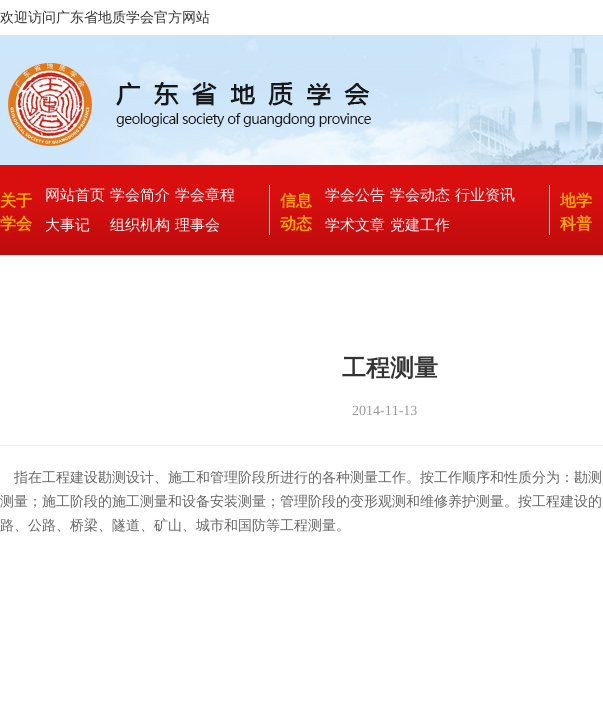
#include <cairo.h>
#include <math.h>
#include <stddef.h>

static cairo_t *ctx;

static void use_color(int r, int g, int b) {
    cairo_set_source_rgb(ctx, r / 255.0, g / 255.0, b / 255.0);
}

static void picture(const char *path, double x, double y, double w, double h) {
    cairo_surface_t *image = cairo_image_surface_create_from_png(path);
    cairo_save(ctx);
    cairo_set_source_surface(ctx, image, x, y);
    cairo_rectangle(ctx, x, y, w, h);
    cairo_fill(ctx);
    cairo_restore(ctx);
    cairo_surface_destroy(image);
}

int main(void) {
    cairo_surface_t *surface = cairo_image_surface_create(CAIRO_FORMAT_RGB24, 603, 712);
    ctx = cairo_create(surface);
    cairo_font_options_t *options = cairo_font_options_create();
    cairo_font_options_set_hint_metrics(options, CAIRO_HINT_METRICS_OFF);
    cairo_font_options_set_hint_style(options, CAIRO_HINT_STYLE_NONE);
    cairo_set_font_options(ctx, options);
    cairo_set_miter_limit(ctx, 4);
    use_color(255, 255, 255);
    cairo_paint(ctx);
    picture("img1.png", 0, 35, 603, 220);
    cairo_select_font_face(ctx, "WenQuanYi Zen Hei Medium", CAIRO_FONT_SLANT_NORMAL, CAIRO_FONT_WEIGHT_NORMAL);
    cairo_set_font_size(ctx, 14);
    use_color(51, 51, 51);
    cairo_move_to(ctx, 0, 22);
    cairo_show_text(ctx, "欢迎访问广东省地质学会官方网站");
    picture("img2.png", 8, 36, 595, 129);
    cairo_select_font_face(ctx, "WenQuanYi Zen Hei", CAIRO_FONT_SLANT_NORMAL, CAIRO_FONT_WEIGHT_BOLD);
    cairo_set_font_size(ctx, 16);
    use_color(255, 174, 0);
    cairo_move_to(ctx, 0, 206);
    cairo_show_text(ctx, "关于");
    cairo_move_to(ctx, 0, 229);
    cairo_show_text(ctx, "学会");
    cairo_select_font_face(ctx, "WenQuanYi Zen Hei Medium", CAIRO_FONT_SLANT_NORMAL, CAIRO_FONT_WEIGHT_NORMAL);
    cairo_set_font_size(ctx, 15);
    use_color(255, 255, 255);
    cairo_move_to(ctx, 45, 200);
    cairo_show_text(ctx, "网站首页");
    cairo_move_to(ctx, 110, 200);
    cairo_show_text(ctx, "学会简介");
    cairo_move_to(ctx, 175, 200);
    cairo_show_text(ctx, "学会章程");
    cairo_move_to(ctx, 45, 230);
    cairo_show_text(ctx, "大事记");
    cairo_move_to(ctx, 110, 230);
    cairo_show_text(ctx, "组织机构");
    cairo_move_to(ctx, 175, 230);
    cairo_show_text(ctx, "理事会");
    cairo_rectangle(ctx, 269, 185, 1, 50);
    cairo_fill(ctx);
    cairo_select_font_face(ctx, "WenQuanYi Zen Hei", CAIRO_FONT_SLANT_NORMAL, CAIRO_FONT_WEIGHT_BOLD);
    cairo_set_font_size(ctx, 16);
    use_color(255, 174, 0);
    cairo_move_to(ctx, 280, 206);
    cairo_show_text(ctx, "信息");
    cairo_move_to(ctx, 280, 229);
    cairo_show_text(ctx, "动态");
    cairo_select_font_face(ctx, "WenQuanYi Zen Hei Medium", CAIRO_FONT_SLANT_NORMAL, CAIRO_FONT_WEIGHT_NORMAL);
    cairo_set_font_size(ctx, 15);
    use_color(255, 255, 255);
    cairo_move_to(ctx, 325, 200);
    cairo_show_text(ctx, "学会公告");
    cairo_move_to(ctx, 390, 200);
    cairo_show_text(ctx, "学会动态");
    cairo_move_to(ctx, 455, 200);
    cairo_show_text(ctx, "行业资讯");
    cairo_move_to(ctx, 325, 230);
    cairo_show_text(ctx, "学术文章");
    cairo_move_to(ctx, 390, 230);
    cairo_show_text(ctx, "党建工作");
    cairo_rectangle(ctx, 549, 185, 1, 50);
    cairo_fill(ctx);
    cairo_select_font_face(ctx, "WenQuanYi Zen Hei", CAIRO_FONT_SLANT_NORMAL, CAIRO_FONT_WEIGHT_BOLD);
    cairo_set_font_size(ctx, 16);
    use_color(255, 174, 0);
    cairo_move_to(ctx, 560, 206);
    cairo_show_text(ctx, "地学");
    cairo_move_to(ctx, 560, 229);
    cairo_show_text(ctx, "科普");
    cairo_set_font_size(ctx, 24);
    use_color(51, 51, 51);
    cairo_move_to(ctx, 342, 376);
    cairo_show_text(ctx, "工程测量");
    cairo_select_font_face(ctx, "Liberation Serif", CAIRO_FONT_SLANT_NORMAL, CAIRO_FONT_WEIGHT_NORMAL);
    cairo_set_font_size(ctx, 14);
    use_color(153, 153, 153);
    cairo_move_to(ctx, 352, 415);
    cairo_show_text(ctx, "2014-11-13");
    use_color(238, 238, 238);
    cairo_rectangle(ctx, 0, 445, 603, 1);
    cairo_fill(ctx);
    cairo_select_font_face(ctx, "WenQuanYi Zen Hei Medium", CAIRO_FONT_SLANT_NORMAL, CAIRO_FONT_WEIGHT_NORMAL);
    use_color(102, 102, 102);
    cairo_move_to(ctx, 14, 482);
    cairo_show_text(ctx, "指在工程建设勘测设计、施工和管理阶段所进行的各种测量工作。按工作顺序和性质分为：勘测");
    cairo_move_to(ctx, 0, 506);
    cairo_show_text(ctx, "测量；施工阶段的施工测量和设备安装测量；管理阶段的变形观测和维修养护测量。按工程建设的");
    cairo_move_to(ctx, 0, 530);
    cairo_show_text(ctx, "路、公路、桥梁、隧道、矿山、城市和国防等工程测量。");
    cairo_surface_write_to_png(surface, "result.png");
    cairo_font_options_destroy(options);
    cairo_destroy(ctx);
    cairo_surface_destroy(surface);
    return 0;
}
